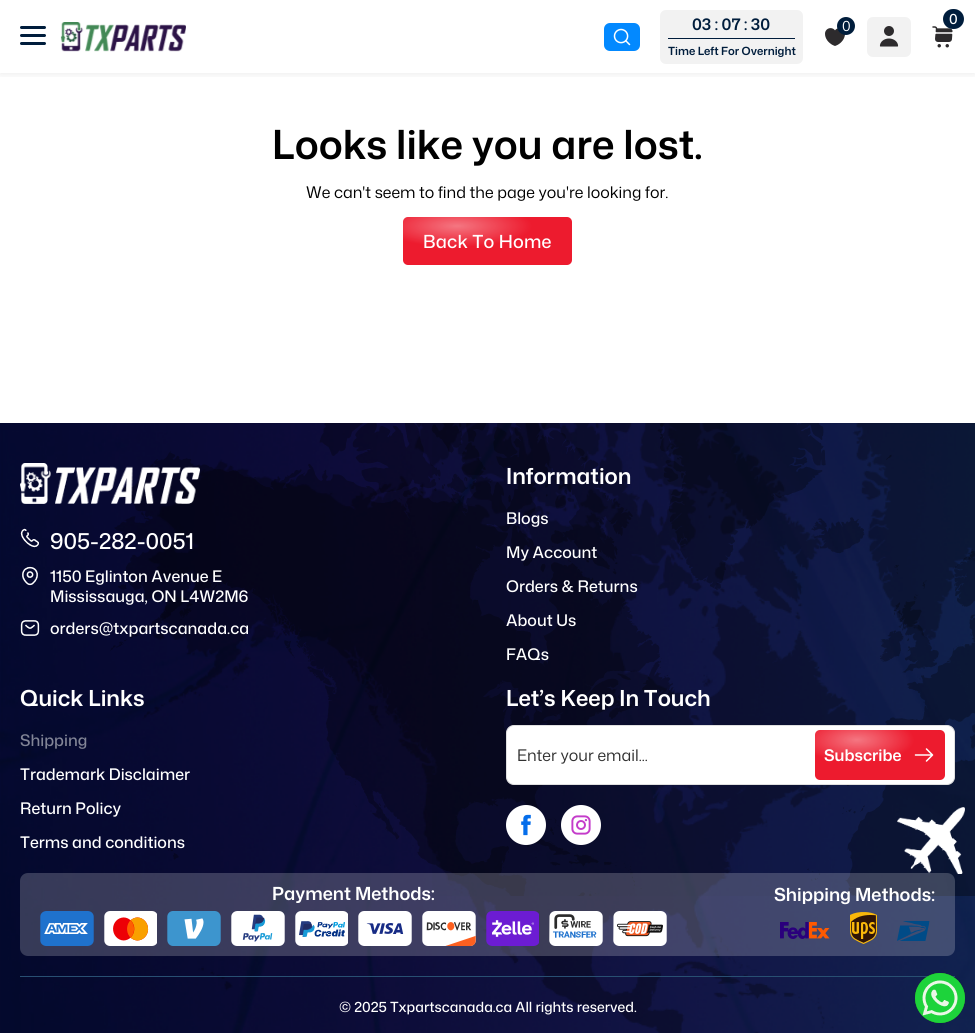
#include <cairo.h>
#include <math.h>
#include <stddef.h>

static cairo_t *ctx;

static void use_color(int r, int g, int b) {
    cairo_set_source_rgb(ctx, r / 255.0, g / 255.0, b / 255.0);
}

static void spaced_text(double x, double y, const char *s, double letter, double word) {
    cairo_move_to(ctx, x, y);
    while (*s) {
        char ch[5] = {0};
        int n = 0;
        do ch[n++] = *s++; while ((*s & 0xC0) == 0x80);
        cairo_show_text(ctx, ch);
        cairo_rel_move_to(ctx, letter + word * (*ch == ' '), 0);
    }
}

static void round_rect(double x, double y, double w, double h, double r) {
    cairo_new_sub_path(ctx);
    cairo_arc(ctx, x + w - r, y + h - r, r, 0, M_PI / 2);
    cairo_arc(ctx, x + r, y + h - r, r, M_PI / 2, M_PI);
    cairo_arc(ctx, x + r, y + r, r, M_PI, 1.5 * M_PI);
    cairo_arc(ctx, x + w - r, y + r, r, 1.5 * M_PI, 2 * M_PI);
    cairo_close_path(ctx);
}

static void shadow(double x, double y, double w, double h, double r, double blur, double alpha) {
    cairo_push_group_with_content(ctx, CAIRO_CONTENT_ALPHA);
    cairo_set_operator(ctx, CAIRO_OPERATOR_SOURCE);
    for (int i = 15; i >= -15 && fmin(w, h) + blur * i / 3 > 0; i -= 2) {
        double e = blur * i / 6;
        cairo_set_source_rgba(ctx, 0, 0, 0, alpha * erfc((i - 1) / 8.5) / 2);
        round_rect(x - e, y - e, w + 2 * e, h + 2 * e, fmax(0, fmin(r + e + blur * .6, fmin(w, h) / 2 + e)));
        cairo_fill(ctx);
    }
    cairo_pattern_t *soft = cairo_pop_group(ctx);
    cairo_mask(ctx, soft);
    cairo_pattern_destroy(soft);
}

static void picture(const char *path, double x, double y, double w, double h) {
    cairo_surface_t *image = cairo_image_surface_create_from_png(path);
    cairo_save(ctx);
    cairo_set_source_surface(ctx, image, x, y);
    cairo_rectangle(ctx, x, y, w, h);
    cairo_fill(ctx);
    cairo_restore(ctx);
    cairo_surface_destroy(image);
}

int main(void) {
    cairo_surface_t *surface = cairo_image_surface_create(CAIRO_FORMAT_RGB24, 975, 1033);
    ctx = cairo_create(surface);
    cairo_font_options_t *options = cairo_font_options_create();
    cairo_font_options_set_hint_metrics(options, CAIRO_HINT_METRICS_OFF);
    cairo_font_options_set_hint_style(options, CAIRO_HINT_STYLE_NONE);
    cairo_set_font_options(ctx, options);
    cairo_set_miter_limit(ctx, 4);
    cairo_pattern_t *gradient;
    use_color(255, 255, 255);
    cairo_paint(ctx);
    cairo_save(ctx);
    cairo_rectangle(ctx, 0, 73, 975, 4);
    cairo_clip(ctx);
    use_color(0, 0, 0);
    shadow(0, 2, 975, 73, 0, 4, 0.07);
    cairo_restore(ctx);
    use_color(0, 29, 60);
    round_rect(20, 26, 26, 3, 1.5);
    cairo_fill(ctx);
    round_rect(20, 34, 26, 3, 1.5);
    cairo_fill(ctx);
    round_rect(20, 42, 26, 3, 1.5);
    cairo_fill(ctx);
    picture("img1.png", 60, 22, 126, 30);
    use_color(3, 137, 255);
    round_rect(604, 23, 36, 28, 6);
    cairo_fill(ctx);
    picture("img2.png", 613, 28, 18, 18);
    use_color(242, 242, 242);
    round_rect(660, 10, 143, 54, 6);
    cairo_fill(ctx);
    cairo_select_font_face(ctx, "Mona Sans SemiBold", CAIRO_FONT_SLANT_NORMAL, CAIRO_FONT_WEIGHT_NORMAL);
    cairo_set_font_size(ctx, 16);
    use_color(0, 29, 60);
    cairo_move_to(ctx, 692, 30);
    cairo_show_text(ctx, "03 : 07 : 30");
    cairo_rectangle(ctx, 668, 38, 127, 1);
    cairo_fill(ctx);
    cairo_set_font_size(ctx, 11.25);
    cairo_move_to(ctx, 668, 55);
    cairo_show_text(ctx, "Time Left For Overnight");
    picture("img3.png", 825, 28, 20, 18);
    cairo_arc(ctx, 846, 26, 9, 0, 2 * M_PI);
    cairo_fill(ctx);
    cairo_select_font_face(ctx, "Mona Sans", CAIRO_FONT_SLANT_NORMAL, CAIRO_FONT_WEIGHT_NORMAL);
    cairo_set_font_size(ctx, 14);
    use_color(255, 255, 255);
    cairo_move_to(ctx, 842, 31);
    cairo_show_text(ctx, "0");
    use_color(242, 242, 242);
    round_rect(867, 17, 44, 40, 6);
    cairo_fill(ctx);
    picture("img4.png", 879, 26, 20, 21);
    picture("img5.png", 932, 26, 21, 22);
    use_color(0, 29, 60);
    round_rect(943, 9, 21, 20, 10);
    cairo_fill(ctx);
    cairo_select_font_face(ctx, "Mona Sans Medium", CAIRO_FONT_SLANT_NORMAL, CAIRO_FONT_WEIGHT_NORMAL);
    use_color(255, 255, 255);
    cairo_move_to(ctx, 949, 24);
    cairo_show_text(ctx, "0");
    cairo_select_font_face(ctx, "Mona Sans SemiBold", CAIRO_FONT_SLANT_NORMAL, CAIRO_FONT_WEIGHT_NORMAL);
    cairo_set_font_size(ctx, 40);
    use_color(0, 0, 0);
    cairo_move_to(ctx, 272, 159);
    cairo_show_text(ctx, "Looks like you are lost.");
    cairo_select_font_face(ctx, "Mona Sans", CAIRO_FONT_SLANT_NORMAL, CAIRO_FONT_WEIGHT_NORMAL);
    cairo_set_font_size(ctx, 16);
    cairo_move_to(ctx, 306, 198);
    cairo_show_text(ctx, "We can't seem to find the page you're looking for.");
    use_color(237, 27, 46);
    round_rect(403, 217, 169, 48, 5);
    cairo_fill(ctx);
    gradient = cairo_pattern_create_radial(0, 0, 0, 0, 0, 1);
    cairo_pattern_set_matrix(gradient, &(cairo_matrix_t){1.0 / 107, 0, 0, 1.0 / 30, -1.0 * 457 / 107, -1.0 * 226 / 30});
    cairo_pattern_add_color_stop_rgba(gradient, 0, 1, 1, 1, 0.4);
    cairo_pattern_add_color_stop_rgba(gradient, 0.7, 1, 1, 1, 0);
    cairo_pattern_add_color_stop_rgba(gradient, 1, 1, 1, 1, 0);
    cairo_set_source(ctx, gradient);
    cairo_pattern_destroy(gradient);
    round_rect(403, 217, 169, 48, 5);
    cairo_fill(ctx);
    cairo_select_font_face(ctx, "Mona Sans Medium", CAIRO_FONT_SLANT_NORMAL, CAIRO_FONT_WEIGHT_NORMAL);
    cairo_set_font_size(ctx, 18);
    use_color(255, 255, 255);
    spaced_text(423, 248, "Back To Home", 0.2, 0);
    picture("img6.png", 0, 423, 975, 610);
    cairo_set_source_rgba(ctx, 0.012, 0.075, 0.141, 0.1);
    cairo_rectangle(ctx, 432, 423, 543, 473);
    cairo_fill(ctx);
    picture("img7.png", 110, 423, 865, 473);
    picture("img8.png", 20, 463, 180, 41);
    picture("img9.png", 20, 528, 19, 20);
    cairo_set_font_size(ctx, 22);
    use_color(255, 255, 255);
    cairo_move_to(ctx, 50, 549);
    cairo_show_text(ctx, "905-282-0051");
    picture("img10.png", 22, 566, 16, 20);
    cairo_set_font_size(ctx, 16);
    cairo_move_to(ctx, 50, 582);
    cairo_show_text(ctx, "1150 Eglinton Avenue E");
    cairo_move_to(ctx, 50, 602);
    cairo_show_text(ctx, "Mississauga, ON L4W2M6");
    picture("img11.png", 20, 620, 20, 16);
    cairo_move_to(ctx, 50, 634);
    cairo_show_text(ctx, "orders@txpartscanada.ca");
    cairo_select_font_face(ctx, "Mona Sans SemiBold", CAIRO_FONT_SLANT_NORMAL, CAIRO_FONT_WEIGHT_NORMAL);
    cairo_set_font_size(ctx, 22);
    cairo_move_to(ctx, 506, 484);
    cairo_show_text(ctx, "Information");
    cairo_select_font_face(ctx, "Mona Sans Medium", CAIRO_FONT_SLANT_NORMAL, CAIRO_FONT_WEIGHT_NORMAL);
    cairo_set_font_size(ctx, 16);
    cairo_move_to(ctx, 506, 524);
    cairo_show_text(ctx, "Blogs");
    cairo_move_to(ctx, 506, 558);
    cairo_show_text(ctx, "My Account");
    cairo_move_to(ctx, 506, 592);
    cairo_show_text(ctx, "Orders & Returns");
    cairo_move_to(ctx, 506, 626);
    cairo_show_text(ctx, "About Us");
    cairo_move_to(ctx, 506, 660);
    cairo_show_text(ctx, "FAQs");
    cairo_select_font_face(ctx, "Mona Sans SemiBold", CAIRO_FONT_SLANT_NORMAL, CAIRO_FONT_WEIGHT_NORMAL);
    cairo_set_font_size(ctx, 22);
    cairo_move_to(ctx, 20, 706);
    cairo_show_text(ctx, "Quick Links");
    cairo_select_font_face(ctx, "Mona Sans Medium", CAIRO_FONT_SLANT_NORMAL, CAIRO_FONT_WEIGHT_NORMAL);
    cairo_set_font_size(ctx, 16);
    use_color(130, 133, 150);
    cairo_move_to(ctx, 20, 746);
    cairo_show_text(ctx, "Shipping");
    use_color(255, 255, 255);
    cairo_move_to(ctx, 20, 780);
    cairo_show_text(ctx, "Trademark Disclaimer");
    cairo_move_to(ctx, 20, 814);
    cairo_show_text(ctx, "Return Policy");
    cairo_move_to(ctx, 20, 848);
    cairo_show_text(ctx, "Terms and conditions");
    cairo_select_font_face(ctx, "Mona Sans SemiBold", CAIRO_FONT_SLANT_NORMAL, CAIRO_FONT_WEIGHT_NORMAL);
    cairo_set_font_size(ctx, 22);
    cairo_move_to(ctx, 506, 706);
    cairo_show_text(ctx, "Let’s Keep In Touch");
    round_rect(506.5, 725.5, 448, 59, 7.5);
    cairo_fill_preserve(ctx);
    use_color(224, 224, 224);
    cairo_set_line_width(ctx, 1);
    cairo_stroke(ctx);
    cairo_select_font_face(ctx, "Mona Sans", CAIRO_FONT_SLANT_NORMAL, CAIRO_FONT_WEIGHT_NORMAL);
    cairo_set_font_size(ctx, 16);
    use_color(49, 49, 49);
    cairo_move_to(ctx, 517, 761);
    cairo_show_text(ctx, "Enter your email...");
    use_color(237, 27, 46);
    round_rect(815, 730, 130, 50, 5);
    cairo_fill(ctx);
    gradient = cairo_pattern_create_radial(0, 0, 0, 0, 0, 1);
    cairo_pattern_set_matrix(gradient, &(cairo_matrix_t){1.0 / 82, 0, 0, 1.0 / 32, -1.0 * 857 / 82, -1.0 * 740 / 32});
    cairo_pattern_add_color_stop_rgba(gradient, 0, 1, 1, 1, 0.4);
    cairo_pattern_add_color_stop_rgba(gradient, 0.7, 1, 1, 1, 0);
    cairo_pattern_add_color_stop_rgba(gradient, 1, 1, 1, 1, 0);
    cairo_set_source(ctx, gradient);
    cairo_pattern_destroy(gradient);
    round_rect(815, 730, 130, 50, 5);
    cairo_fill(ctx);
    cairo_select_font_face(ctx, "Mona Sans SemiBold", CAIRO_FONT_SLANT_NORMAL, CAIRO_FONT_WEIGHT_NORMAL);
    use_color(255, 255, 255);
    cairo_move_to(ctx, 824, 761);
    cairo_show_text(ctx, "Subscribe");
    cairo_new_path(ctx);
    cairo_move_to(ctx, 926.5, 749);
    cairo_line_to(ctx, 932.5, 755);
    cairo_line_to(ctx, 926.5, 761);
    cairo_move_to(ctx, 915.5, 755);
    cairo_line_to(ctx, 932.5, 755);
    cairo_set_line_width(ctx, 1.5);
    cairo_set_line_cap(ctx, CAIRO_LINE_CAP_ROUND);
    cairo_set_line_join(ctx, CAIRO_LINE_JOIN_ROUND);
    cairo_stroke(ctx);
    cairo_arc(ctx, 526, 825, 20, 0, 2 * M_PI);
    cairo_fill(ctx);
    picture("img12.png", 521, 814, 10, 22);
    cairo_arc(ctx, 581, 825, 20, 0, 2 * M_PI);
    cairo_fill(ctx);
    picture("img13.png", 571, 815, 20, 20);
    cairo_set_source_rgba(ctx, 1, 1, 1, 0.2);
    round_rect(20, 873, 935, 83, 8);
    cairo_fill(ctx);
    cairo_set_font_size(ctx, 18);
    use_color(255, 255, 255);
    cairo_move_to(ctx, 272, 900);
    cairo_show_text(ctx, "Payment Methods:");
    picture("img14.png", 40, 911, 54, 35);
    picture("img15.png", 104, 911, 53, 35);
    picture("img16.png", 167, 911, 54, 35);
    picture("img17.png", 231, 911, 54, 35);
    picture("img18.png", 295, 911, 53, 35);
    picture("img19.png", 358, 911, 54, 35);
    picture("img20.png", 422, 911, 54, 35);
    picture("img21.png", 486, 911, 53, 35);
    picture("img22.png", 549, 911, 54, 35);
    picture("img23.png", 613, 911, 54, 35);
    cairo_move_to(ctx, 774, 901);
    cairo_show_text(ctx, "Shipping Methods:");
    picture("img24.png", 780, 922, 50, 17);
    picture("img25.png", 850, 912, 27, 32);
    picture("img26.png", 897, 921, 33, 20);
    use_color(40, 79, 114);
    cairo_rectangle(ctx, 20, 976, 935, 1);
    cairo_fill(ctx);
    cairo_select_font_face(ctx, "Mona Sans Medium", CAIRO_FONT_SLANT_NORMAL, CAIRO_FONT_WEIGHT_NORMAL);
    cairo_set_font_size(ctx, 14);
    use_color(255, 255, 255);
    cairo_move_to(ctx, 339, 1012);
    cairo_show_text(ctx, "© 2025 Txpartscanada.ca All rights reserved.");
    picture("img27.png", 897, 807, 68, 67);
    cairo_set_source_rgba(ctx, 0.196, 0.733, 0.02, 0.9);
    cairo_arc(ctx, 940, 998, 25, 0, 2 * M_PI);
    cairo_fill(ctx);
    picture("img28.png", 915, 973, 50, 50);
    cairo_surface_write_to_png(surface, "result.png");
    cairo_font_options_destroy(options);
    cairo_destroy(ctx);
    cairo_surface_destroy(surface);
    return 0;
}
